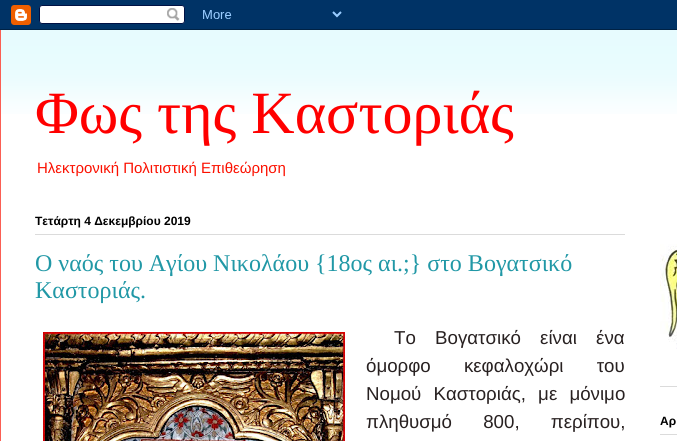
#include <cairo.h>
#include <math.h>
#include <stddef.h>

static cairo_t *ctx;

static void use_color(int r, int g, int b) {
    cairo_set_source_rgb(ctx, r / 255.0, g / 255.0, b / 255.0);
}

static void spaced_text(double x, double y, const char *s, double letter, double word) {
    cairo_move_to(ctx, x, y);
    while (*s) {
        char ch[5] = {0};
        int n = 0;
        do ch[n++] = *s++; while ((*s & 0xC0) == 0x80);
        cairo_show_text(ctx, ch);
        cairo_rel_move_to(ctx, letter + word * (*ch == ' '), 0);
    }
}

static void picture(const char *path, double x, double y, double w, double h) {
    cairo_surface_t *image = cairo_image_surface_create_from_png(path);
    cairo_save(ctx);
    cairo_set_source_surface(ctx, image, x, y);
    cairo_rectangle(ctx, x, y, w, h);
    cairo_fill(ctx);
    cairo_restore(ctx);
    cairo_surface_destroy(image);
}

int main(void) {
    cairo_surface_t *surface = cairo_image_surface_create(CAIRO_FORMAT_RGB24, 677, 441);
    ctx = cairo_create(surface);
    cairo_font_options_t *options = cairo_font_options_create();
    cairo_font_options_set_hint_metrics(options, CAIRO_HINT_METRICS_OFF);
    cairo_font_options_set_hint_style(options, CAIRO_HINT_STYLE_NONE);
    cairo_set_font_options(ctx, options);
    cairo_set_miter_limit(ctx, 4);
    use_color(255, 255, 255);
    cairo_paint(ctx);
    picture("img1.png", 0, 0, 677, 30);
    picture("img2.png", 1, 30, 676, 84);
    use_color(251, 94, 83);
    cairo_rectangle(ctx, 0, 30, 1, 411);
    cairo_fill(ctx);
    cairo_select_font_face(ctx, "Liberation Serif", CAIRO_FONT_SLANT_NORMAL, CAIRO_FONT_WEIGHT_NORMAL);
    cairo_set_font_size(ctx, 60);
    use_color(255, 0, 0);
    cairo_move_to(ctx, 35, 133);
    cairo_show_text(ctx, "Φως της Καστοριάς");
    cairo_select_font_face(ctx, "Liberation Sans", CAIRO_FONT_SLANT_NORMAL, CAIRO_FONT_WEIGHT_NORMAL);
    cairo_set_font_size(ctx, 15);
    use_color(251, 16, 0);
    cairo_move_to(ctx, 37, 173);
    cairo_show_text(ctx, "Ηλεκτρονική Πολιτιστική Επιθεώρηση");
    use_color(219, 219, 219);
    cairo_rectangle(ctx, 35, 234, 590, 1);
    cairo_fill(ctx);
    cairo_select_font_face(ctx, "Liberation Sans", CAIRO_FONT_SLANT_NORMAL, CAIRO_FONT_WEIGHT_BOLD);
    cairo_set_font_size(ctx, 12);
    use_color(0, 0, 0);
    cairo_move_to(ctx, 35, 225);
    cairo_show_text(ctx, "Τετάρτη 4 Δεκεμβρίου 2019");
    cairo_select_font_face(ctx, "Liberation Serif", CAIRO_FONT_SLANT_NORMAL, CAIRO_FONT_WEIGHT_NORMAL);
    cairo_set_font_size(ctx, 24);
    use_color(33, 152, 166);
    cairo_move_to(ctx, 35, 271);
    cairo_show_text(ctx, "Ο ναός του Αγίου Νικολάου {18ος αι.;} στο Βογατσικό");
    cairo_move_to(ctx, 35, 298);
    cairo_show_text(ctx, "Καστοριάς.");
    picture("img3.png", 43, 332, 302, 109);
    cairo_select_font_face(ctx, "Liberation Sans", CAIRO_FONT_SLANT_NORMAL, CAIRO_FONT_WEIGHT_NORMAL);
    cairo_set_font_size(ctx, 18.7);
    use_color(40, 33, 33);
    spaced_text(394, 344, "Το Βογατσικό είναι ένα", 0, 14);
    spaced_text(366, 372, "όμορφο κεφαλοχώρι του", 0, 28);
    spaced_text(366, 400, "Νομού Καστοριάς, με μόνιμο", 0, 7);
    spaced_text(366, 428, "πληθυσμό 800, περίπου,", 0, 26);
    use_color(219, 219, 219);
    cairo_rectangle(ctx, 660, 386, 17, 1);
    cairo_fill(ctx);
    picture("img4.png", 660, 244, 17, 105);
    cairo_rectangle(ctx, 660, 434, 17, 1);
    cairo_fill(ctx);
    cairo_select_font_face(ctx, "Liberation Sans", CAIRO_FONT_SLANT_NORMAL, CAIRO_FONT_WEIGHT_BOLD);
    cairo_set_font_size(ctx, 12);
    use_color(0, 0, 0);
    cairo_move_to(ctx, 660, 425);
    cairo_show_text(ctx, "Αρ");
    cairo_surface_write_to_png(surface, "result.png");
    cairo_font_options_destroy(options);
    cairo_destroy(ctx);
    cairo_surface_destroy(surface);
    return 0;
}
